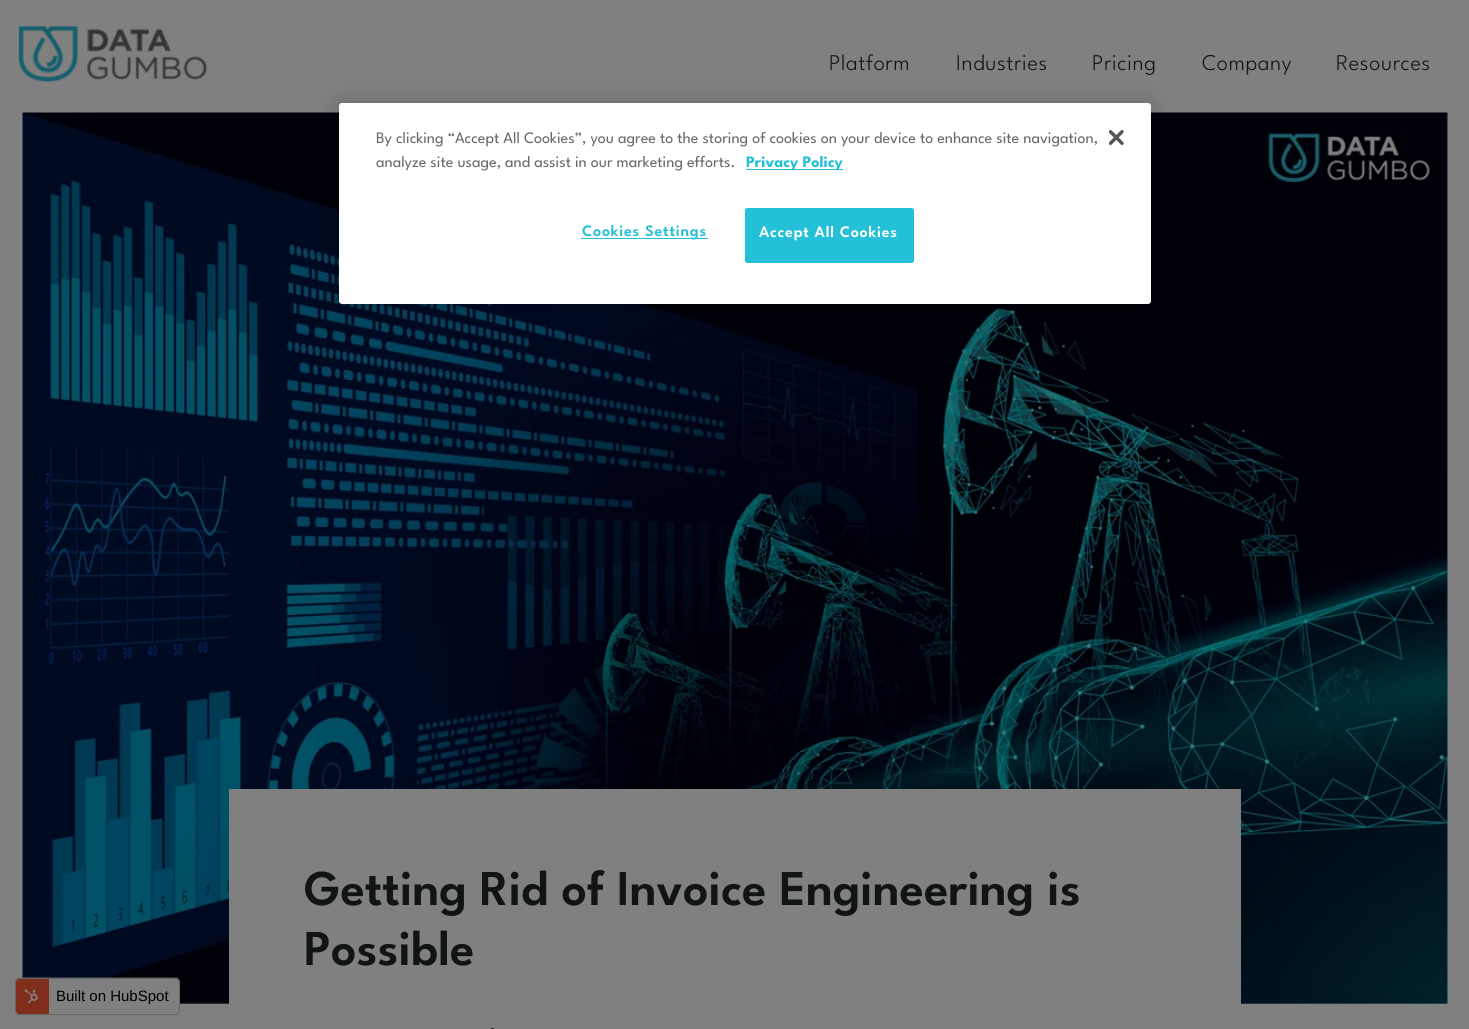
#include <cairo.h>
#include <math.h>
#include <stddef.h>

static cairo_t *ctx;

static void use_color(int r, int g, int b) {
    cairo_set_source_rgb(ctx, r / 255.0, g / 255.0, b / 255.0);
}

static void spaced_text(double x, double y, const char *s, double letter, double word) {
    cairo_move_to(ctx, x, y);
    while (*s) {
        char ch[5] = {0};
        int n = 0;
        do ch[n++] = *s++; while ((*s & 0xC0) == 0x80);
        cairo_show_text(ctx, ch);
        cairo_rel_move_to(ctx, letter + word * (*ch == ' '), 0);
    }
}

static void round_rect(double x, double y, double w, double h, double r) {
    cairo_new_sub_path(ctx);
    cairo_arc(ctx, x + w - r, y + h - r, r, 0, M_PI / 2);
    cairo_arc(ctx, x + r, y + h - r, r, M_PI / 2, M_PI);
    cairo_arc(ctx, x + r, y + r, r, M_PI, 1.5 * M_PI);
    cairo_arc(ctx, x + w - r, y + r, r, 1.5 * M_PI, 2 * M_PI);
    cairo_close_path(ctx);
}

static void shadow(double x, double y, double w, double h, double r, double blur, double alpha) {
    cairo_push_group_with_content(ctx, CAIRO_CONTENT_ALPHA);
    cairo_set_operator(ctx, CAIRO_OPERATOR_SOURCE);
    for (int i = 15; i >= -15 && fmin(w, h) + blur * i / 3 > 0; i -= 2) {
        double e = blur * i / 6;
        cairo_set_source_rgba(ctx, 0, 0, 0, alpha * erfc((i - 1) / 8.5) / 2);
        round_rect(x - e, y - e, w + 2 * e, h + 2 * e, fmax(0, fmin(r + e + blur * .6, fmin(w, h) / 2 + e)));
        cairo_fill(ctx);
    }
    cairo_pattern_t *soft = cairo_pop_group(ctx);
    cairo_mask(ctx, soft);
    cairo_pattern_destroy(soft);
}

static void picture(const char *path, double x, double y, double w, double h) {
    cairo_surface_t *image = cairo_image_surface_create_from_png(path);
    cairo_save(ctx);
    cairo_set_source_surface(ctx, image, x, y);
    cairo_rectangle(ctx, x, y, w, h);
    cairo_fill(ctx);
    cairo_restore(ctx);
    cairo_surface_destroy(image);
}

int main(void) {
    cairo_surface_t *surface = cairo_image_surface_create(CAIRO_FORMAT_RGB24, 1469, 1029);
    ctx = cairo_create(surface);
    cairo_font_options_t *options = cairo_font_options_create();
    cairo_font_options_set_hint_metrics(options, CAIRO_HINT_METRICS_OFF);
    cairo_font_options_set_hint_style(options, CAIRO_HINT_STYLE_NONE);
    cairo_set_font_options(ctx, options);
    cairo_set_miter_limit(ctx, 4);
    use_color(128, 128, 128);
    cairo_paint(ctx);
    picture("img1.png", 18, 26, 189, 56);
    cairo_select_font_face(ctx, "League Spartan Light", CAIRO_FONT_SLANT_NORMAL, CAIRO_FONT_WEIGHT_NORMAL);
    cairo_set_font_size(ctx, 22.5);
    use_color(16, 21, 19);
    spaced_text(829, 70, "Platform", 0.6, 0);
    spaced_text(956, 70, "Industries", 0.6, 0);
    spaced_text(1092, 70, "Pricing", 0.6, 0);
    spaced_text(1202, 70, "Company", 0.6, 0);
    spaced_text(1336, 70, "Resources", 0.6, 0);
    picture("img2.png", 21, 112, 1427, 892);
    use_color(128, 128, 128);
    cairo_rectangle(ctx, 229, 789, 1012, 215);
    cairo_fill(ctx);
    cairo_select_font_face(ctx, "League Spartan SemiBold", CAIRO_FONT_SLANT_NORMAL, CAIRO_FONT_WEIGHT_NORMAL);
    cairo_set_font_size(ctx, 50);
    use_color(16, 21, 19);
    cairo_move_to(ctx, 304, 905);
    cairo_show_text(ctx, "Getting Rid of Invoice Engineering is");
    cairo_move_to(ctx, 304, 965);
    cairo_show_text(ctx, "Possible");
    round_rect(490, 1028, 5, 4, 2.5);
    cairo_fill(ctx);
    use_color(0, 0, 0);
    shadow(339, 103, 812, 201, 3, 11, 0.2);
    use_color(255, 255, 255);
    round_rect(339, 103, 812, 201, 3);
    cairo_fill(ctx);
    cairo_select_font_face(ctx, "League Spartan", CAIRO_FONT_SLANT_NORMAL, CAIRO_FONT_WEIGHT_NORMAL);
    cairo_set_font_size(ctx, 16);
    use_color(105, 105, 105);
    cairo_move_to(ctx, 376, 143);
    cairo_show_text(ctx, "By clicking “Accept All Cookies”, you agree to the storing of cookies on your device to enhance site navigation,");
    cairo_move_to(ctx, 376, 167);
    cairo_show_text(ctx, "analyze site usage, and assist in our marketing efforts.");
    use_color(36, 192, 215);
    cairo_rectangle(ctx, 746, 169, 97, 1);
    cairo_fill(ctx);
    cairo_select_font_face(ctx, "League Spartan", CAIRO_FONT_SLANT_NORMAL, CAIRO_FONT_WEIGHT_BOLD);
    cairo_move_to(ctx, 746, 167);
    cairo_show_text(ctx, "Privacy Policy");
    picture("img3.png", 1109, 130, 15, 15);
    cairo_rectangle(ctx, 581, 238, 127, 1);
    cairo_fill(ctx);
    cairo_select_font_face(ctx, "League Spartan SemiBold", CAIRO_FONT_SLANT_NORMAL, CAIRO_FONT_WEIGHT_NORMAL);
    spaced_text(582, 236, "Cookies Settings", 0.75, 0);
    round_rect(745.5, 208.5, 168, 54, 2);
    cairo_fill_preserve(ctx);
    cairo_set_line_width(ctx, 1);
    cairo_stroke(ctx);
    use_color(255, 255, 255);
    spaced_text(759, 237, "Accept All Cookies", 0.75, 0);
    cairo_save(ctx);
    round_rect(15, 978, 165, 37, 5);
    cairo_clip(ctx);
    use_color(128, 46, 27);
    cairo_rectangle(ctx, 16, 978, 33, 37);
    cairo_fill(ctx);
    use_color(128, 128, 128);
    cairo_rectangle(ctx, 49, 978, 130, 37);
    cairo_fill(ctx);
    cairo_restore(ctx);
    round_rect(15.5, 978.5, 164, 36, 4.5);
    use_color(102, 102, 102);
    cairo_stroke(ctx);
    picture("img4.png", 24, 989, 14, 15);
    cairo_select_font_face(ctx, "Liberation Sans", CAIRO_FONT_SLANT_NORMAL, CAIRO_FONT_WEIGHT_NORMAL);
    cairo_set_font_size(ctx, 15);
    use_color(0, 0, 0);
    cairo_move_to(ctx, 56, 1001);
    cairo_show_text(ctx, "Built on HubSpot");
    cairo_surface_write_to_png(surface, "result.png");
    cairo_font_options_destroy(options);
    cairo_destroy(ctx);
    cairo_surface_destroy(surface);
    return 0;
}
